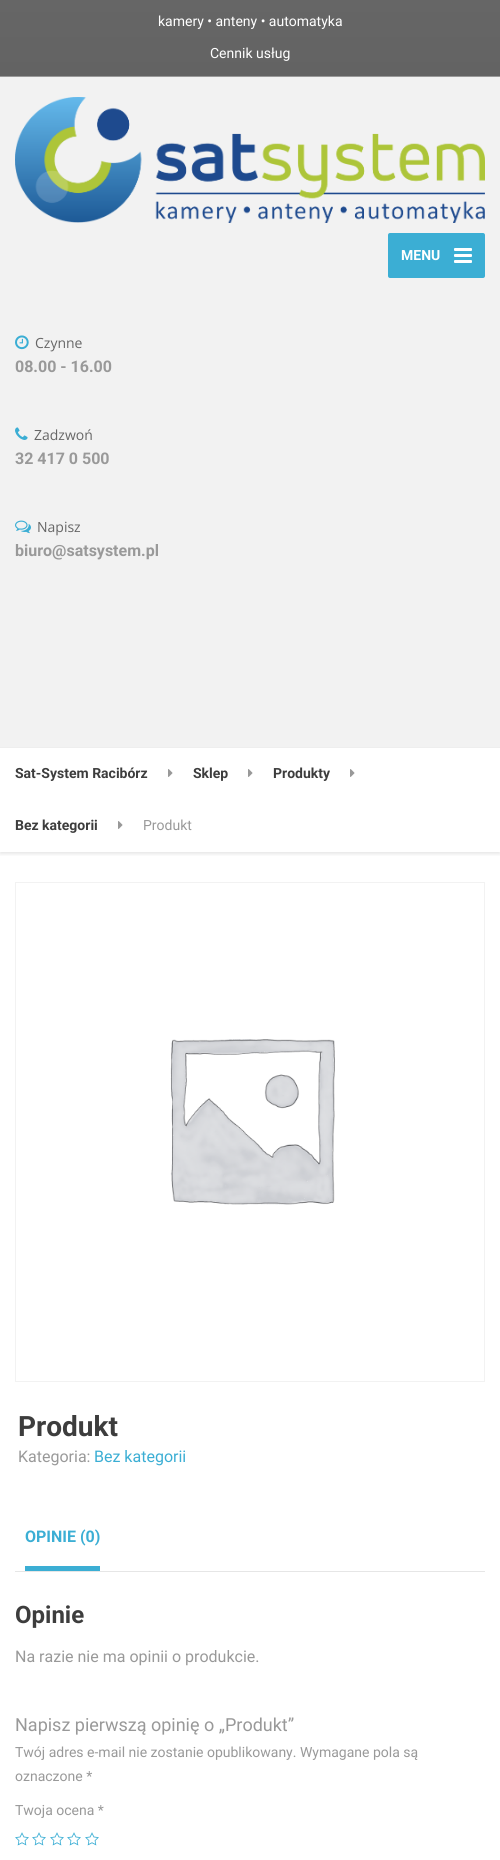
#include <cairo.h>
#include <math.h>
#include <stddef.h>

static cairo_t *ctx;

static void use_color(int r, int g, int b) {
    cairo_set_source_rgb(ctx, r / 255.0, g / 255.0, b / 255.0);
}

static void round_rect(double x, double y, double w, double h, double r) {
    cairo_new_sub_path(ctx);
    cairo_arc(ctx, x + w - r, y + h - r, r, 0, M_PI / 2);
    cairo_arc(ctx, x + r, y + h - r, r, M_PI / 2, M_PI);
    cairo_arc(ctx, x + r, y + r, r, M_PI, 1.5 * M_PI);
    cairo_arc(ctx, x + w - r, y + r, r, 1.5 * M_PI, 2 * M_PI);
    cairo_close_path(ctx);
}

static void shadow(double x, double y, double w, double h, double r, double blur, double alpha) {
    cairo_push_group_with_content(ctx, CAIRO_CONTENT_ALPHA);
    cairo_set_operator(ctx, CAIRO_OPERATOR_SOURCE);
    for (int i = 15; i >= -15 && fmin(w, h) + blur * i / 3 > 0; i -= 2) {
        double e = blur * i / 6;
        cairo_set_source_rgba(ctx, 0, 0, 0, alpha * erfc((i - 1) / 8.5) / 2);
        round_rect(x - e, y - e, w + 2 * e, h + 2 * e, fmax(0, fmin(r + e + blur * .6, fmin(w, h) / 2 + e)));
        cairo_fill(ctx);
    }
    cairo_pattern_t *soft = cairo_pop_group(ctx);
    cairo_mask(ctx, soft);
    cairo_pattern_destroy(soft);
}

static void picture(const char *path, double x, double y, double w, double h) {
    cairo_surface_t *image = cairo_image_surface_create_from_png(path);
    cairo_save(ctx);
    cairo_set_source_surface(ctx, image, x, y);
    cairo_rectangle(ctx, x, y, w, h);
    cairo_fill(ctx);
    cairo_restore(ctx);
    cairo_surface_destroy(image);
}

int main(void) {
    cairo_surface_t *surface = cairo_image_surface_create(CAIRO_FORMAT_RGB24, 500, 1860);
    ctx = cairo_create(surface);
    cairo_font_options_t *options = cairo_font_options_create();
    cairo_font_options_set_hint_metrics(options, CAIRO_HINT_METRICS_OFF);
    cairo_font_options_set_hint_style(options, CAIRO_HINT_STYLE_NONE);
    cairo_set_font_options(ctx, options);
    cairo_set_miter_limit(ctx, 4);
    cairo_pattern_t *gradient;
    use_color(255, 255, 255);
    cairo_paint(ctx);
    gradient = cairo_pattern_create_linear(250, 0, 250, 76);
    cairo_pattern_add_color_stop_rgba(gradient, 0, 0.4, 0.4, 0.4, 1);
    cairo_pattern_add_color_stop_rgba(gradient, 1, 0.388, 0.388, 0.388, 1);
    cairo_set_source(ctx, gradient);
    cairo_pattern_destroy(gradient);
    cairo_rectangle(ctx, 0, 0, 500, 76);
    cairo_fill(ctx);
    use_color(153, 153, 153);
    cairo_rectangle(ctx, 0, 76, 500, 1);
    cairo_fill(ctx);
    cairo_select_font_face(ctx, "Roboto", CAIRO_FONT_SLANT_NORMAL, CAIRO_FONT_WEIGHT_NORMAL);
    cairo_set_font_size(ctx, 14);
    use_color(255, 255, 255);
    cairo_move_to(ctx, 158, 26);
    cairo_show_text(ctx, "kamery • anteny • automatyka");
    cairo_move_to(ctx, 210, 58);
    cairo_show_text(ctx, "Cennik usług");
    use_color(242, 242, 242);
    cairo_rectangle(ctx, 0, 77, 500, 670);
    cairo_fill(ctx);
    picture("img1.png", 15, 97, 470, 126);
    use_color(59, 174, 212);
    round_rect(388, 233, 97, 45, 2);
    cairo_fill(ctx);
    cairo_select_font_face(ctx, "Roboto", CAIRO_FONT_SLANT_NORMAL, CAIRO_FONT_WEIGHT_BOLD);
    use_color(255, 255, 255);
    cairo_move_to(ctx, 401, 260);
    cairo_show_text(ctx, "MENU");
    round_rect(454, 248, 18, 3, 1);
    cairo_fill(ctx);
    round_rect(454, 254, 18, 3, 1);
    cairo_fill(ctx);
    round_rect(454, 260, 18, 3, 1);
    cairo_fill(ctx);
    picture("img2.png", 15, 335, 14, 15);
    cairo_select_font_face(ctx, "Open Sans", CAIRO_FONT_SLANT_NORMAL, CAIRO_FONT_WEIGHT_NORMAL);
    use_color(102, 102, 102);
    cairo_move_to(ctx, 35, 348);
    cairo_show_text(ctx, "Czynne");
    cairo_select_font_face(ctx, "Roboto", CAIRO_FONT_SLANT_NORMAL, CAIRO_FONT_WEIGHT_BOLD);
    cairo_set_font_size(ctx, 16);
    use_color(153, 153, 153);
    cairo_move_to(ctx, 15, 372);
    cairo_show_text(ctx, "08.00 - 16.00");
    picture("img3.png", 15, 427, 13, 13);
    cairo_select_font_face(ctx, "Open Sans", CAIRO_FONT_SLANT_NORMAL, CAIRO_FONT_WEIGHT_NORMAL);
    cairo_set_font_size(ctx, 14);
    use_color(102, 102, 102);
    cairo_move_to(ctx, 34, 440);
    cairo_show_text(ctx, "Zadzwoń");
    cairo_select_font_face(ctx, "Roboto", CAIRO_FONT_SLANT_NORMAL, CAIRO_FONT_WEIGHT_BOLD);
    cairo_set_font_size(ctx, 16);
    use_color(153, 153, 153);
    cairo_move_to(ctx, 15, 464);
    cairo_show_text(ctx, "32 417 0 500");
    picture("img4.png", 15, 520, 16, 14);
    cairo_select_font_face(ctx, "Open Sans", CAIRO_FONT_SLANT_NORMAL, CAIRO_FONT_WEIGHT_NORMAL);
    cairo_set_font_size(ctx, 14);
    use_color(102, 102, 102);
    cairo_move_to(ctx, 37, 532);
    cairo_show_text(ctx, "Napisz");
    cairo_select_font_face(ctx, "Roboto", CAIRO_FONT_SLANT_NORMAL, CAIRO_FONT_WEIGHT_BOLD);
    cairo_set_font_size(ctx, 16);
    use_color(153, 153, 153);
    cairo_move_to(ctx, 15, 556);
    cairo_show_text(ctx, "biuro@satsystem.pl");
    use_color(238, 238, 238);
    cairo_rectangle(ctx, 0, 747, 500, 1);
    cairo_fill(ctx);
    cairo_save(ctx);
    cairo_rectangle(ctx, 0, 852, 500, 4);
    cairo_clip(ctx);
    use_color(0, 0, 0);
    shadow(0, 750, 500, 104, 0, 2, 0.1);
    cairo_restore(ctx);
    cairo_set_font_size(ctx, 14);
    use_color(61, 61, 61);
    cairo_move_to(ctx, 15, 778);
    cairo_show_text(ctx, "Sat-System Racibórz");
    picture("img5.png", 168, 769, 5, 8);
    cairo_move_to(ctx, 193, 778);
    cairo_show_text(ctx, "Sklep");
    picture("img5.png", 248, 769, 5, 8);
    cairo_move_to(ctx, 273, 778);
    cairo_show_text(ctx, "Produkty");
    picture("img5.png", 350, 769, 5, 8);
    cairo_move_to(ctx, 15, 830);
    cairo_show_text(ctx, "Bez kategorii");
    picture("img5.png", 118, 821, 5, 8);
    cairo_select_font_face(ctx, "Roboto", CAIRO_FONT_SLANT_NORMAL, CAIRO_FONT_WEIGHT_NORMAL);
    use_color(153, 153, 153);
    cairo_move_to(ctx, 143, 830);
    cairo_show_text(ctx, "Produkt");
    cairo_rectangle(ctx, 15.5, 882.5, 469, 499);
    use_color(242, 242, 242);
    cairo_set_line_width(ctx, 1);
    cairo_stroke(ctx);
    picture("img6.png", 170, 1039, 165, 166);
    cairo_select_font_face(ctx, "Roboto", CAIRO_FONT_SLANT_NORMAL, CAIRO_FONT_WEIGHT_BOLD);
    cairo_set_font_size(ctx, 28);
    use_color(61, 61, 61);
    cairo_move_to(ctx, 18, 1436);
    cairo_show_text(ctx, "Produkt");
    cairo_select_font_face(ctx, "Roboto", CAIRO_FONT_SLANT_NORMAL, CAIRO_FONT_WEIGHT_NORMAL);
    cairo_set_font_size(ctx, 16);
    use_color(153, 153, 153);
    cairo_move_to(ctx, 18, 1462);
    cairo_show_text(ctx, "Kategoria:");
    use_color(59, 174, 212);
    cairo_move_to(ctx, 94, 1462);
    cairo_show_text(ctx, "Bez kategorii");
    use_color(230, 230, 230);
    cairo_rectangle(ctx, 15, 1571, 470, 1);
    cairo_fill(ctx);
    cairo_select_font_face(ctx, "Roboto", CAIRO_FONT_SLANT_NORMAL, CAIRO_FONT_WEIGHT_BOLD);
    use_color(59, 174, 212);
    cairo_move_to(ctx, 25, 1542);
    cairo_show_text(ctx, "OPINIE (0)");
    cairo_rectangle(ctx, 25, 1566, 75, 5);
    cairo_fill(ctx);
    cairo_set_font_size(ctx, 24);
    use_color(61, 61, 61);
    cairo_move_to(ctx, 15, 1623);
    cairo_show_text(ctx, "Opinie");
    cairo_select_font_face(ctx, "Roboto", CAIRO_FONT_SLANT_NORMAL, CAIRO_FONT_WEIGHT_NORMAL);
    cairo_set_font_size(ctx, 16);
    use_color(153, 153, 153);
    cairo_move_to(ctx, 15, 1662);
    cairo_show_text(ctx, "Na razie nie ma opinii o produkcie.");
    cairo_set_font_size(ctx, 18);
    cairo_move_to(ctx, 15, 1731);
    cairo_show_text(ctx, "Napisz pierwszą opinię o „Produkt”");
    cairo_set_font_size(ctx, 14);
    cairo_move_to(ctx, 15, 1757);
    cairo_show_text(ctx, "Twój adres e-mail nie zostanie opublikowany. Wymagane pola są");
    cairo_move_to(ctx, 15, 1781);
    cairo_show_text(ctx, "oznaczone *");
    cairo_move_to(ctx, 15, 1815);
    cairo_show_text(ctx, "Twoja ocena *");
    picture("img7.png", 15, 1832, 14, 14);
    picture("img7.png", 32, 1832, 14, 14);
    picture("img7.png", 50, 1832, 14, 14);
    picture("img7.png", 67, 1832, 14, 14);
    picture("img7.png", 85, 1832, 14, 14);
    cairo_surface_write_to_png(surface, "result.png");
    cairo_font_options_destroy(options);
    cairo_destroy(ctx);
    cairo_surface_destroy(surface);
    return 0;
}
